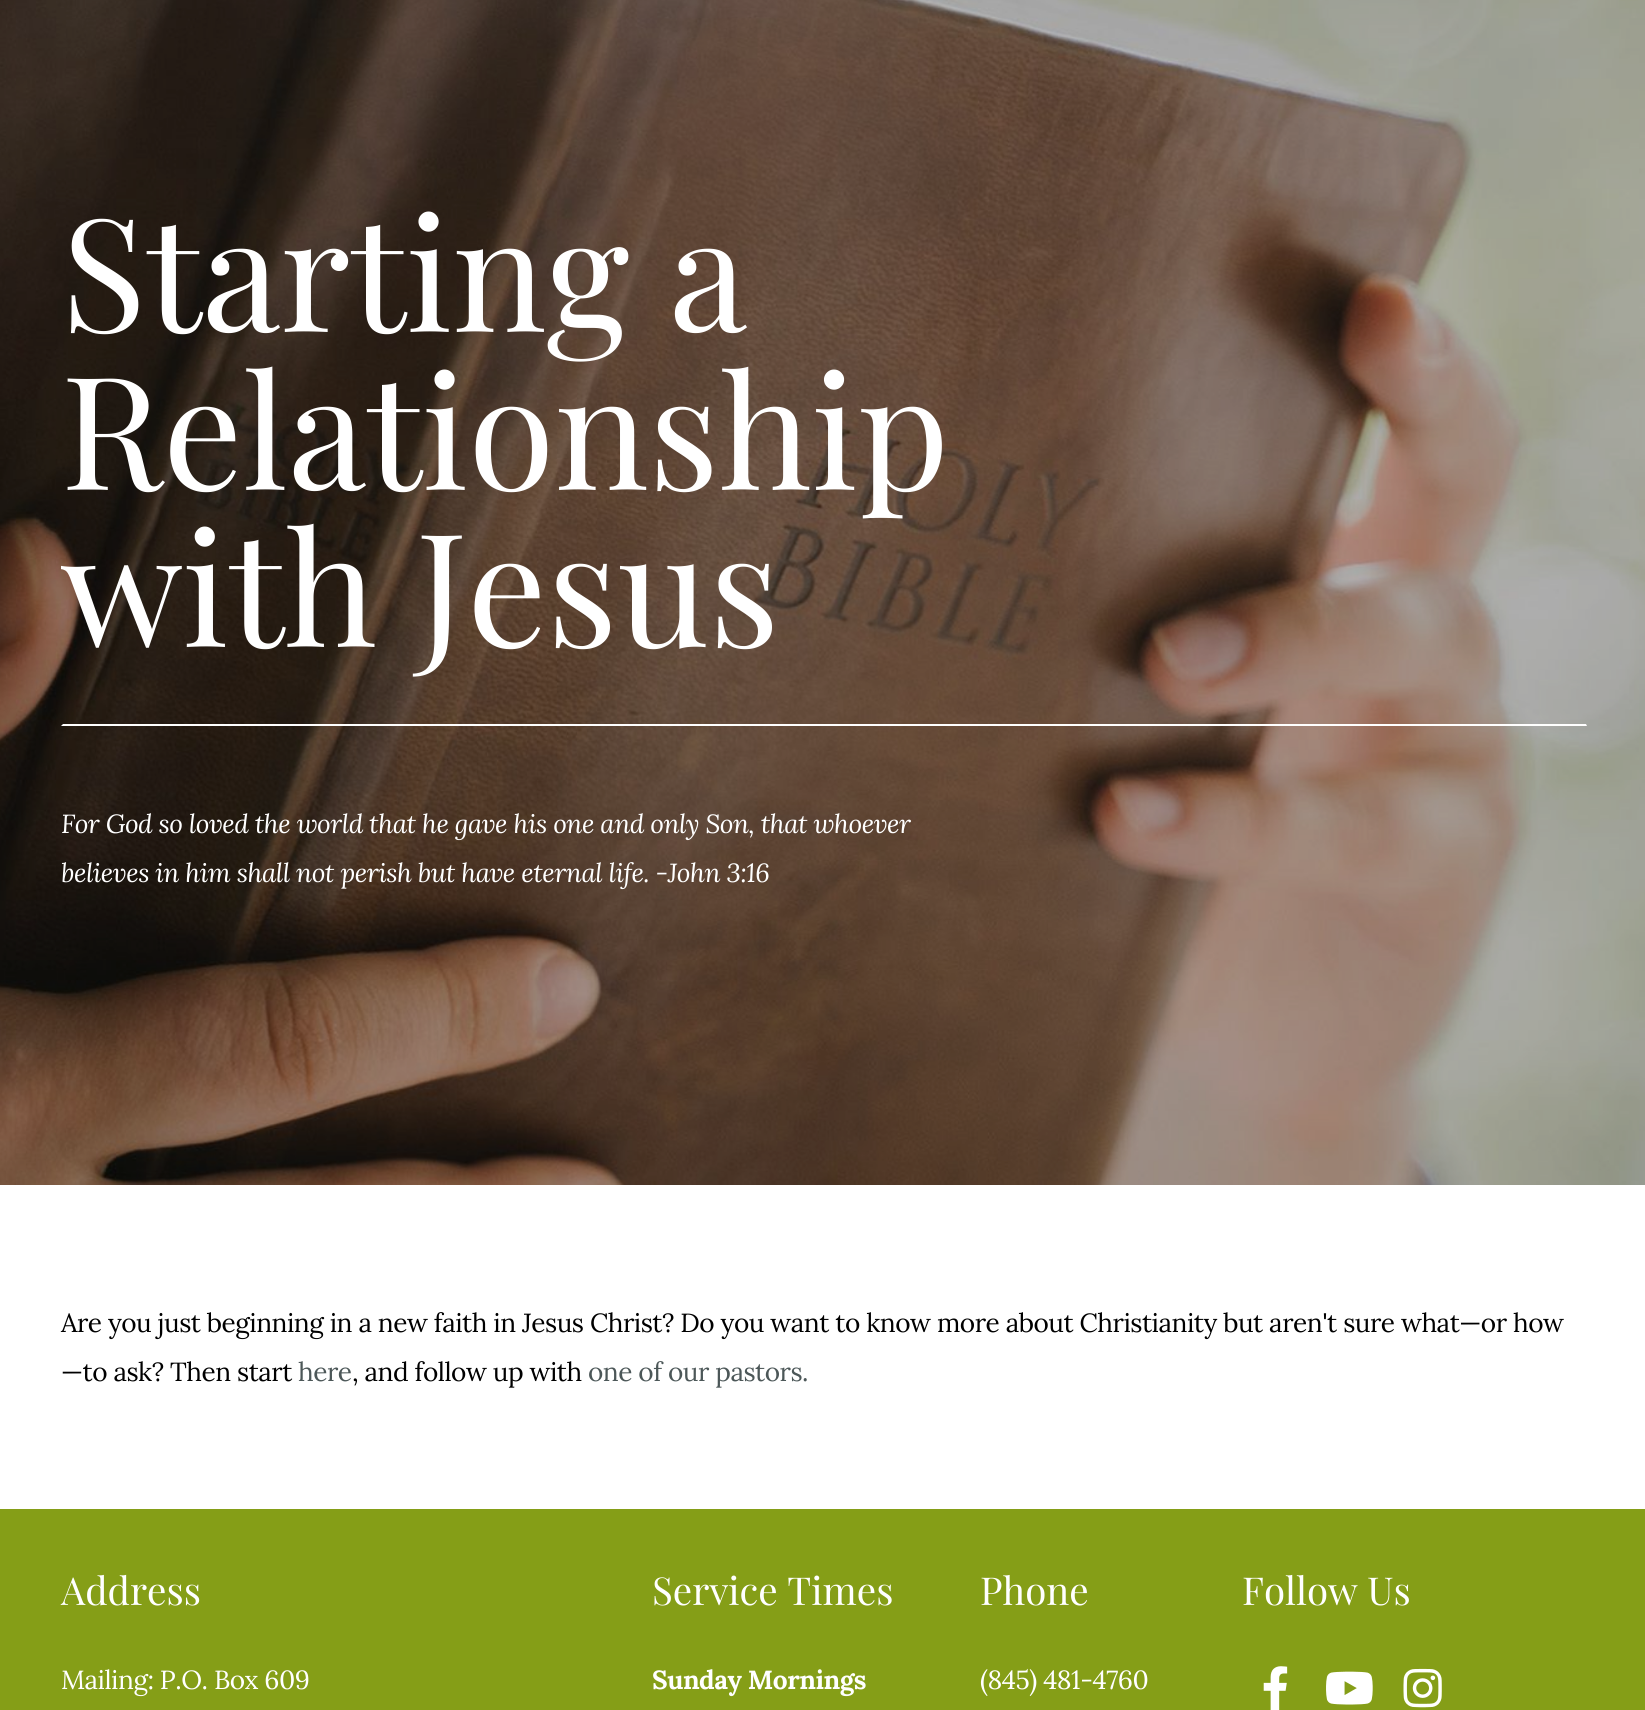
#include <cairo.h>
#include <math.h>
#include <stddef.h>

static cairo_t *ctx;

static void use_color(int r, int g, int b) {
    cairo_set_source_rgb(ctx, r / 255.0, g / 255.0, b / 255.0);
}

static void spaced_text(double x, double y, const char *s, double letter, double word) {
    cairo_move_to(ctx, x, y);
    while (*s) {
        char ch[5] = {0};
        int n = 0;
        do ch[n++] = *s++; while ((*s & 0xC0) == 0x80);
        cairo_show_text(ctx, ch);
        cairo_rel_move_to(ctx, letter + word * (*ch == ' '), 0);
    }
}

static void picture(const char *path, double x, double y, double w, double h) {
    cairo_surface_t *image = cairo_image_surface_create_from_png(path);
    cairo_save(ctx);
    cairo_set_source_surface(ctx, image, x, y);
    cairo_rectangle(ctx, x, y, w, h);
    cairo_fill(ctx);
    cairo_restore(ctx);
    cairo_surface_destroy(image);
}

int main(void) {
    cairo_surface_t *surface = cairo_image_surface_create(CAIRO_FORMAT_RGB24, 1645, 1710);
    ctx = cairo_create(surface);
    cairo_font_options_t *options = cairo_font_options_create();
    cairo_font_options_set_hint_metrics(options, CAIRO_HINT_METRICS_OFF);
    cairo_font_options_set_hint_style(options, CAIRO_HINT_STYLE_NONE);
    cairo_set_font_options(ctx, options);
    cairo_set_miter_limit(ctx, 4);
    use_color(255, 255, 255);
    cairo_paint(ctx);
    picture("img1.png", 0, 0, 1645, 1185);
    cairo_select_font_face(ctx, "Playfair Display", CAIRO_FONT_SLANT_NORMAL, CAIRO_FONT_WEIGHT_NORMAL);
    cairo_set_font_size(ctx, 157.5);
    use_color(255, 255, 255);
    cairo_move_to(ctx, 61, 332);
    cairo_show_text(ctx, "Starting a");
    cairo_move_to(ctx, 61, 490);
    cairo_show_text(ctx, "Relationship");
    cairo_move_to(ctx, 61, 647);
    cairo_show_text(ctx, "with Jesus");
    cairo_new_path(ctx);
    cairo_move_to(ctx, 1587, 726);
    cairo_line_to(ctx, 61, 726);
    cairo_line_to(ctx, 63, 724);
    cairo_line_to(ctx, 1586, 724);
    cairo_close_path(ctx);
    cairo_fill(ctx);
    cairo_select_font_face(ctx, "Lora", CAIRO_FONT_SLANT_ITALIC, CAIRO_FONT_WEIGHT_NORMAL);
    cairo_set_font_size(ctx, 26.2);
    spaced_text(61, 833, "For God so loved the world that he gave his one and only Son, that whoever", -0.49, 0);
    spaced_text(61, 882, "believes in him shall not perish but have eternal life. -John 3:16", -0.49, 0);
    cairo_select_font_face(ctx, "Lora", CAIRO_FONT_SLANT_NORMAL, CAIRO_FONT_WEIGHT_NORMAL);
    use_color(0, 0, 0);
    spaced_text(61, 1332, "Are you just beginning in a new faith in Jesus Christ? Do you want to know more about Christianity but aren't sure what—or how", -0.49, 0);
    spaced_text(61, 1381, "—to ask? Then start", -0.49, 0);
    use_color(76, 87, 88);
    spaced_text(298, 1381, "here", -0.49, 0);
    use_color(0, 0, 0);
    spaced_text(352, 1381, ", and follow up with", -0.49, 0);
    use_color(76, 87, 88);
    spaced_text(588, 1381, "one of our pastors.", -0.49, 0);
    use_color(133, 158, 23);
    cairo_rectangle(ctx, 0, 1509, 1645, 201);
    cairo_fill(ctx);
    cairo_select_font_face(ctx, "Playfair Display", CAIRO_FONT_SLANT_NORMAL, CAIRO_FONT_WEIGHT_NORMAL);
    cairo_set_font_size(ctx, 38.5);
    use_color(255, 255, 255);
    cairo_move_to(ctx, 61, 1605);
    cairo_show_text(ctx, "Address");
    cairo_select_font_face(ctx, "Lora", CAIRO_FONT_SLANT_NORMAL, CAIRO_FONT_WEIGHT_NORMAL);
    cairo_set_font_size(ctx, 26.2);
    spaced_text(61, 1689, "Mailing: P.O. Box 609", -0.49, 0);
    cairo_select_font_face(ctx, "Playfair Display", CAIRO_FONT_SLANT_NORMAL, CAIRO_FONT_WEIGHT_NORMAL);
    cairo_set_font_size(ctx, 38.5);
    cairo_move_to(ctx, 652, 1605);
    cairo_show_text(ctx, "Service Times");
    cairo_select_font_face(ctx, "Lora", CAIRO_FONT_SLANT_NORMAL, CAIRO_FONT_WEIGHT_BOLD);
    cairo_set_font_size(ctx, 26.2);
    spaced_text(652, 1689, "Sunday Mornings", -0.49, 0);
    cairo_select_font_face(ctx, "Playfair Display", CAIRO_FONT_SLANT_NORMAL, CAIRO_FONT_WEIGHT_NORMAL);
    cairo_set_font_size(ctx, 38.5);
    cairo_move_to(ctx, 980, 1605);
    cairo_show_text(ctx, "Phone");
    cairo_select_font_face(ctx, "Lora", CAIRO_FONT_SLANT_NORMAL, CAIRO_FONT_WEIGHT_NORMAL);
    cairo_set_font_size(ctx, 26.2);
    spaced_text(980, 1689, "(845) 481-4760", -0.49, 0);
    cairo_select_font_face(ctx, "Playfair Display", CAIRO_FONT_SLANT_NORMAL, CAIRO_FONT_WEIGHT_NORMAL);
    cairo_set_font_size(ctx, 38.5);
    cairo_move_to(ctx, 1242, 1605);
    cairo_show_text(ctx, "Follow Us");
    picture("img2.png", 1263, 1666, 25, 44);
    picture("img3.png", 1326, 1671, 47, 34);
    picture("img4.png", 1403, 1668, 39, 40);
    cairo_surface_write_to_png(surface, "result.png");
    cairo_font_options_destroy(options);
    cairo_destroy(ctx);
    cairo_surface_destroy(surface);
    return 0;
}
